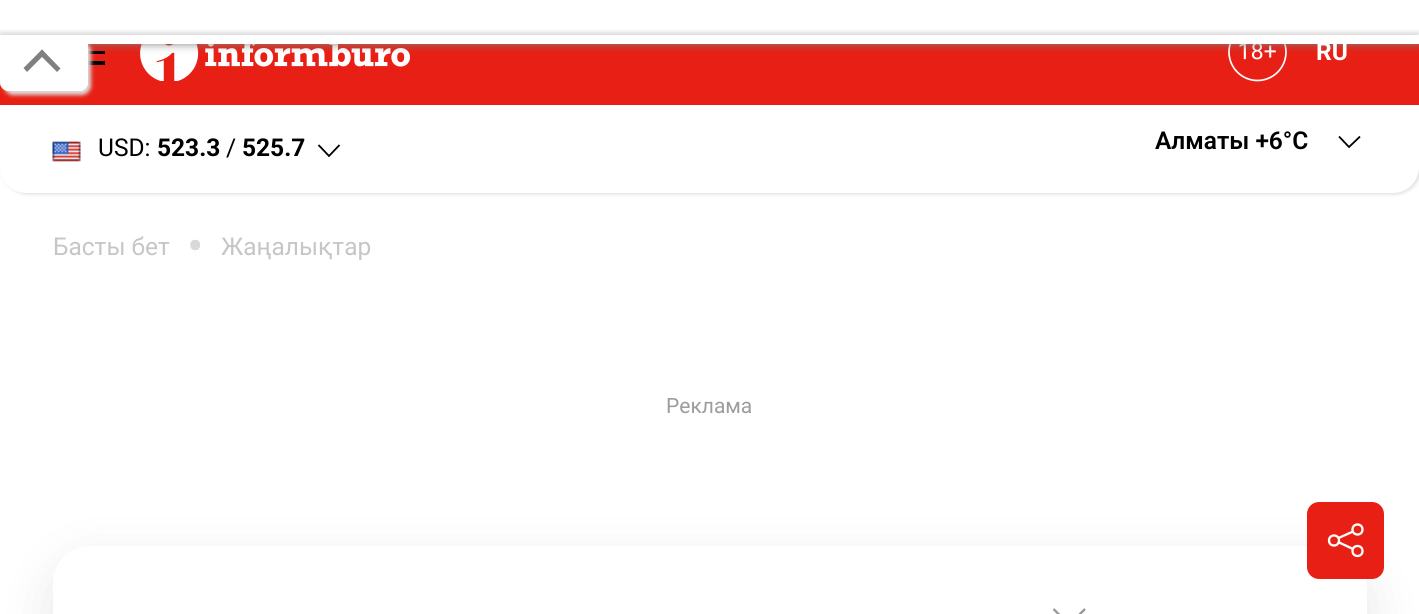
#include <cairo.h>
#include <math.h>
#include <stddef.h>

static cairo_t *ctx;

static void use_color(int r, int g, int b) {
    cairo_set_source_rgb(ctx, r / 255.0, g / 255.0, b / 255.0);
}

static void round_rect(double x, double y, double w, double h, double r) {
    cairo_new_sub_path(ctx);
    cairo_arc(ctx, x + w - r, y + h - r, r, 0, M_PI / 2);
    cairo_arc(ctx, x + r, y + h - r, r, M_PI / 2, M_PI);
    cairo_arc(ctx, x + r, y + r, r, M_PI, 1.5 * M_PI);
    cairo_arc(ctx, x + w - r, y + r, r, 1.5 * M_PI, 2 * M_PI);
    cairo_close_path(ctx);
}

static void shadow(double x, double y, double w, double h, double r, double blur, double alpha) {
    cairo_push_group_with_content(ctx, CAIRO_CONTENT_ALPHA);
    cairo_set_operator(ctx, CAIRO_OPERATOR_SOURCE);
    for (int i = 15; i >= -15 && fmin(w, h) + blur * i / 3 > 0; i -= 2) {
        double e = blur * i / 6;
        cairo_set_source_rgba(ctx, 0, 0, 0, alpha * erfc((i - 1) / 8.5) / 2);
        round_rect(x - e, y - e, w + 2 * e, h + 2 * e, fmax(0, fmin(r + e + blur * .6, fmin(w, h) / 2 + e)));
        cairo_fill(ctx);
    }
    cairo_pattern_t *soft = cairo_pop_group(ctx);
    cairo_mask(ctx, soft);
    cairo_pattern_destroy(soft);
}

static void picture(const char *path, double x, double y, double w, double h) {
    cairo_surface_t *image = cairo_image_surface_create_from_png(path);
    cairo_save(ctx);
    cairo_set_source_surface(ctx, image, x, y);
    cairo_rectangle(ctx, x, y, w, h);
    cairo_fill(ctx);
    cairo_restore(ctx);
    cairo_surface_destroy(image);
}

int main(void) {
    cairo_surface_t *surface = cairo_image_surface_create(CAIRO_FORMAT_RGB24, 1419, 614);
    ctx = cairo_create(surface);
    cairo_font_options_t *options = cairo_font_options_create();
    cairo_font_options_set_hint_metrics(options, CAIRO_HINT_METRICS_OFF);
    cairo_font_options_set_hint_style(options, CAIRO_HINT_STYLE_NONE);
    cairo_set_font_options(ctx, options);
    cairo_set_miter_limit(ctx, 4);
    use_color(255, 255, 255);
    cairo_paint(ctx);
    use_color(0, 0, 0);
    shadow(2, 107, 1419, 87, 26, 2, 0.15);
    use_color(232, 31, 20);
    cairo_rectangle(ctx, 0, 44, 1419, 61);
    cairo_fill(ctx);
    use_color(0, 0, 0);
    cairo_rectangle(ctx, 88, 51, 17, 3);
    cairo_fill(ctx);
    picture("img1.png", 140, 44, 270, 37);
    picture("img2.png", 1228, 44, 59, 38);
    use_color(129, 128, 128);
    shadow(0, 0, 1419, 44, 0, 4.5, 1);
    use_color(255, 255, 255);
    cairo_rectangle(ctx, 0, 0, 1419, 35);
    cairo_fill(ctx);
    use_color(0, 0, 0);
    cairo_rectangle(ctx, 88, 61, 17, 4);
    cairo_fill(ctx);
    use_color(221, 221, 221);
    shadow(4, 42, 87, 53, 9, 2, 1);
    use_color(255, 255, 255);
    cairo_new_path(ctx);
    cairo_move_to(ctx, 0, 39);
    cairo_line_to(ctx, 88, 39);
    cairo_line_to(ctx, 88, 82);
    cairo_curve_to(ctx, 88, 87, 84, 91, 79, 91);
    cairo_line_to(ctx, 9, 91);
    cairo_curve_to(ctx, 4, 91, 0, 87, 0, 82);
    cairo_close_path(ctx);
    cairo_fill(ctx);
    cairo_set_fill_rule(ctx, CAIRO_FILL_RULE_EVEN_ODD);
    cairo_new_path(ctx);
    cairo_move_to(ctx, 0, 38);
    cairo_line_to(ctx, 88, 38);
    cairo_line_to(ctx, 88, 82);
    cairo_curve_to(ctx, 88, 87, 84, 91, 79, 91);
    cairo_line_to(ctx, 9, 91);
    cairo_curve_to(ctx, 4, 91, 0, 87, 0, 82);
    cairo_close_path(ctx);
    cairo_move_to(ctx, 0, 38);
    cairo_line_to(ctx, 84, 38);
    cairo_line_to(ctx, 84, 82);
    cairo_curve_to(ctx, 84, 85, 82, 88, 79, 88);
    cairo_line_to(ctx, 9, 88);
    cairo_curve_to(ctx, 4, 88, 0, 85, 0, 82);
    cairo_close_path(ctx);
    cairo_fill(ctx);
    use_color(221, 221, 221);
    shadow(0, 32, 1419, 8, 0, 2, 1);
    use_color(255, 255, 255);
    cairo_rectangle(ctx, 0, 35, 1419, 9);
    cairo_fill(ctx);
    use_color(129, 128, 128);
    cairo_set_fill_rule(ctx, CAIRO_FILL_RULE_WINDING);
    cairo_new_path(ctx);
    cairo_move_to(ctx, 27, 72);
    cairo_line_to(ctx, 23.5, 68);
    cairo_line_to(ctx, 42, 49.5);
    cairo_line_to(ctx, 45.5, 53.5);
    cairo_close_path(ctx);
    cairo_fill(ctx);
    cairo_new_path(ctx);
    cairo_move_to(ctx, 57, 72);
    cairo_line_to(ctx, 38.5, 53.5);
    cairo_line_to(ctx, 42, 49.5);
    cairo_line_to(ctx, 60.5, 68.5);
    cairo_close_path(ctx);
    cairo_fill(ctx);
    cairo_select_font_face(ctx, "Roboto", CAIRO_FONT_SLANT_NORMAL, CAIRO_FONT_WEIGHT_BOLD);
    cairo_set_font_size(ctx, 24.5);
    use_color(255, 255, 255);
    cairo_move_to(ctx, 1316, 60);
    cairo_show_text(ctx, "RU");
    cairo_new_path(ctx);
    cairo_move_to(ctx, 0, 105);
    cairo_line_to(ctx, 1419, 105);
    cairo_line_to(ctx, 1419, 167);
    cairo_curve_to(ctx, 1419, 181.5, 1407.5, 193, 1393, 193);
    cairo_line_to(ctx, 26, 193);
    cairo_curve_to(ctx, 11.5, 193, 0, 181.5, 0, 167);
    cairo_close_path(ctx);
    cairo_fill(ctx);
    picture("img3.png", 52, 141, 29, 21);
    cairo_select_font_face(ctx, "Roboto", CAIRO_FONT_SLANT_NORMAL, CAIRO_FONT_WEIGHT_NORMAL);
    use_color(0, 0, 0);
    cairo_move_to(ctx, 98, 156);
    cairo_show_text(ctx, "USD:");
    cairo_select_font_face(ctx, "Roboto", CAIRO_FONT_SLANT_NORMAL, CAIRO_FONT_WEIGHT_BOLD);
    cairo_move_to(ctx, 157, 156);
    cairo_show_text(ctx, "523.3");
    cairo_select_font_face(ctx, "Roboto", CAIRO_FONT_SLANT_NORMAL, CAIRO_FONT_WEIGHT_NORMAL);
    cairo_move_to(ctx, 226, 156);
    cairo_show_text(ctx, "/");
    cairo_select_font_face(ctx, "Roboto", CAIRO_FONT_SLANT_NORMAL, CAIRO_FONT_WEIGHT_BOLD);
    cairo_move_to(ctx, 242, 156);
    cairo_show_text(ctx, "525.7");
    cairo_new_path(ctx);
    cairo_move_to(ctx, 339.5, 145);
    cairo_line_to(ctx, 329, 156);
    cairo_line_to(ctx, 318.5, 145);
    cairo_set_line_width(ctx, 1.8);
    cairo_stroke(ctx);
    cairo_select_font_face(ctx, "Roboto SemiBold", CAIRO_FONT_SLANT_NORMAL, CAIRO_FONT_WEIGHT_NORMAL);
    cairo_move_to(ctx, 1155, 149);
    cairo_show_text(ctx, "Алматы +6°C");
    cairo_new_path(ctx);
    cairo_move_to(ctx, 1360, 136.5);
    cairo_line_to(ctx, 1349, 147);
    cairo_line_to(ctx, 1339, 136.5);
    cairo_stroke(ctx);
    cairo_select_font_face(ctx, "Roboto", CAIRO_FONT_SLANT_NORMAL, CAIRO_FONT_WEIGHT_NORMAL);
    use_color(198, 198, 198);
    cairo_move_to(ctx, 53, 255);
    cairo_show_text(ctx, "Басты бет");
    cairo_set_font_size(ctx, 49);
    use_color(217, 217, 217);
    cairo_move_to(ctx, 187, 263);
    cairo_show_text(ctx, "•");
    cairo_set_font_size(ctx, 24.5);
    use_color(198, 198, 198);
    cairo_move_to(ctx, 221, 255);
    cairo_show_text(ctx, "Жаңалықтар");
    cairo_set_font_size(ctx, 21);
    use_color(156, 156, 156);
    cairo_move_to(ctx, 666, 413);
    cairo_show_text(ctx, "Реклама");
    use_color(0, 0, 0);
    shadow(53, 564, 1314, 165, 37, 26, 0.1);
    use_color(255, 255, 255);
    round_rect(53, 546, 1314, 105, 37);
    cairo_fill(ctx);
    cairo_rectangle(ctx, 53, 572, 1314, 6);
    cairo_fill(ctx);
    cairo_new_path(ctx);
    cairo_move_to(ctx, 1053.5, 609);
    cairo_line_to(ctx, 1085, 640.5);
    cairo_move_to(ctx, 1085, 609);
    cairo_line_to(ctx, 1053.5, 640.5);
    use_color(153, 153, 153);
    cairo_set_line_width(ctx, 2.4);
    cairo_stroke(ctx);
    use_color(232, 31, 20);
    round_rect(1307, 502, 77, 77, 12);
    cairo_fill(ctx);
    cairo_new_path(ctx);
    cairo_move_to(ctx, 1353, 549);
    cairo_line_to(ctx, 1338, 542);
    cairo_move_to(ctx, 1353, 531.5);
    cairo_line_to(ctx, 1338.5, 538);
    use_color(255, 255, 255);
    cairo_set_line_width(ctx, 2.3);
    cairo_stroke(ctx);
    cairo_arc(ctx, 1334, 540.5, 5, 0, 2 * M_PI);
    cairo_stroke(ctx);
    cairo_arc(ctx, 1357.5, 529.5, 5, 0, 2 * M_PI);
    cairo_stroke(ctx);
    cairo_arc(ctx, 1357.5, 551, 5, 0, 2 * M_PI);
    cairo_stroke(ctx);
    cairo_surface_write_to_png(surface, "result.png");
    cairo_font_options_destroy(options);
    cairo_destroy(ctx);
    cairo_surface_destroy(surface);
    return 0;
}
